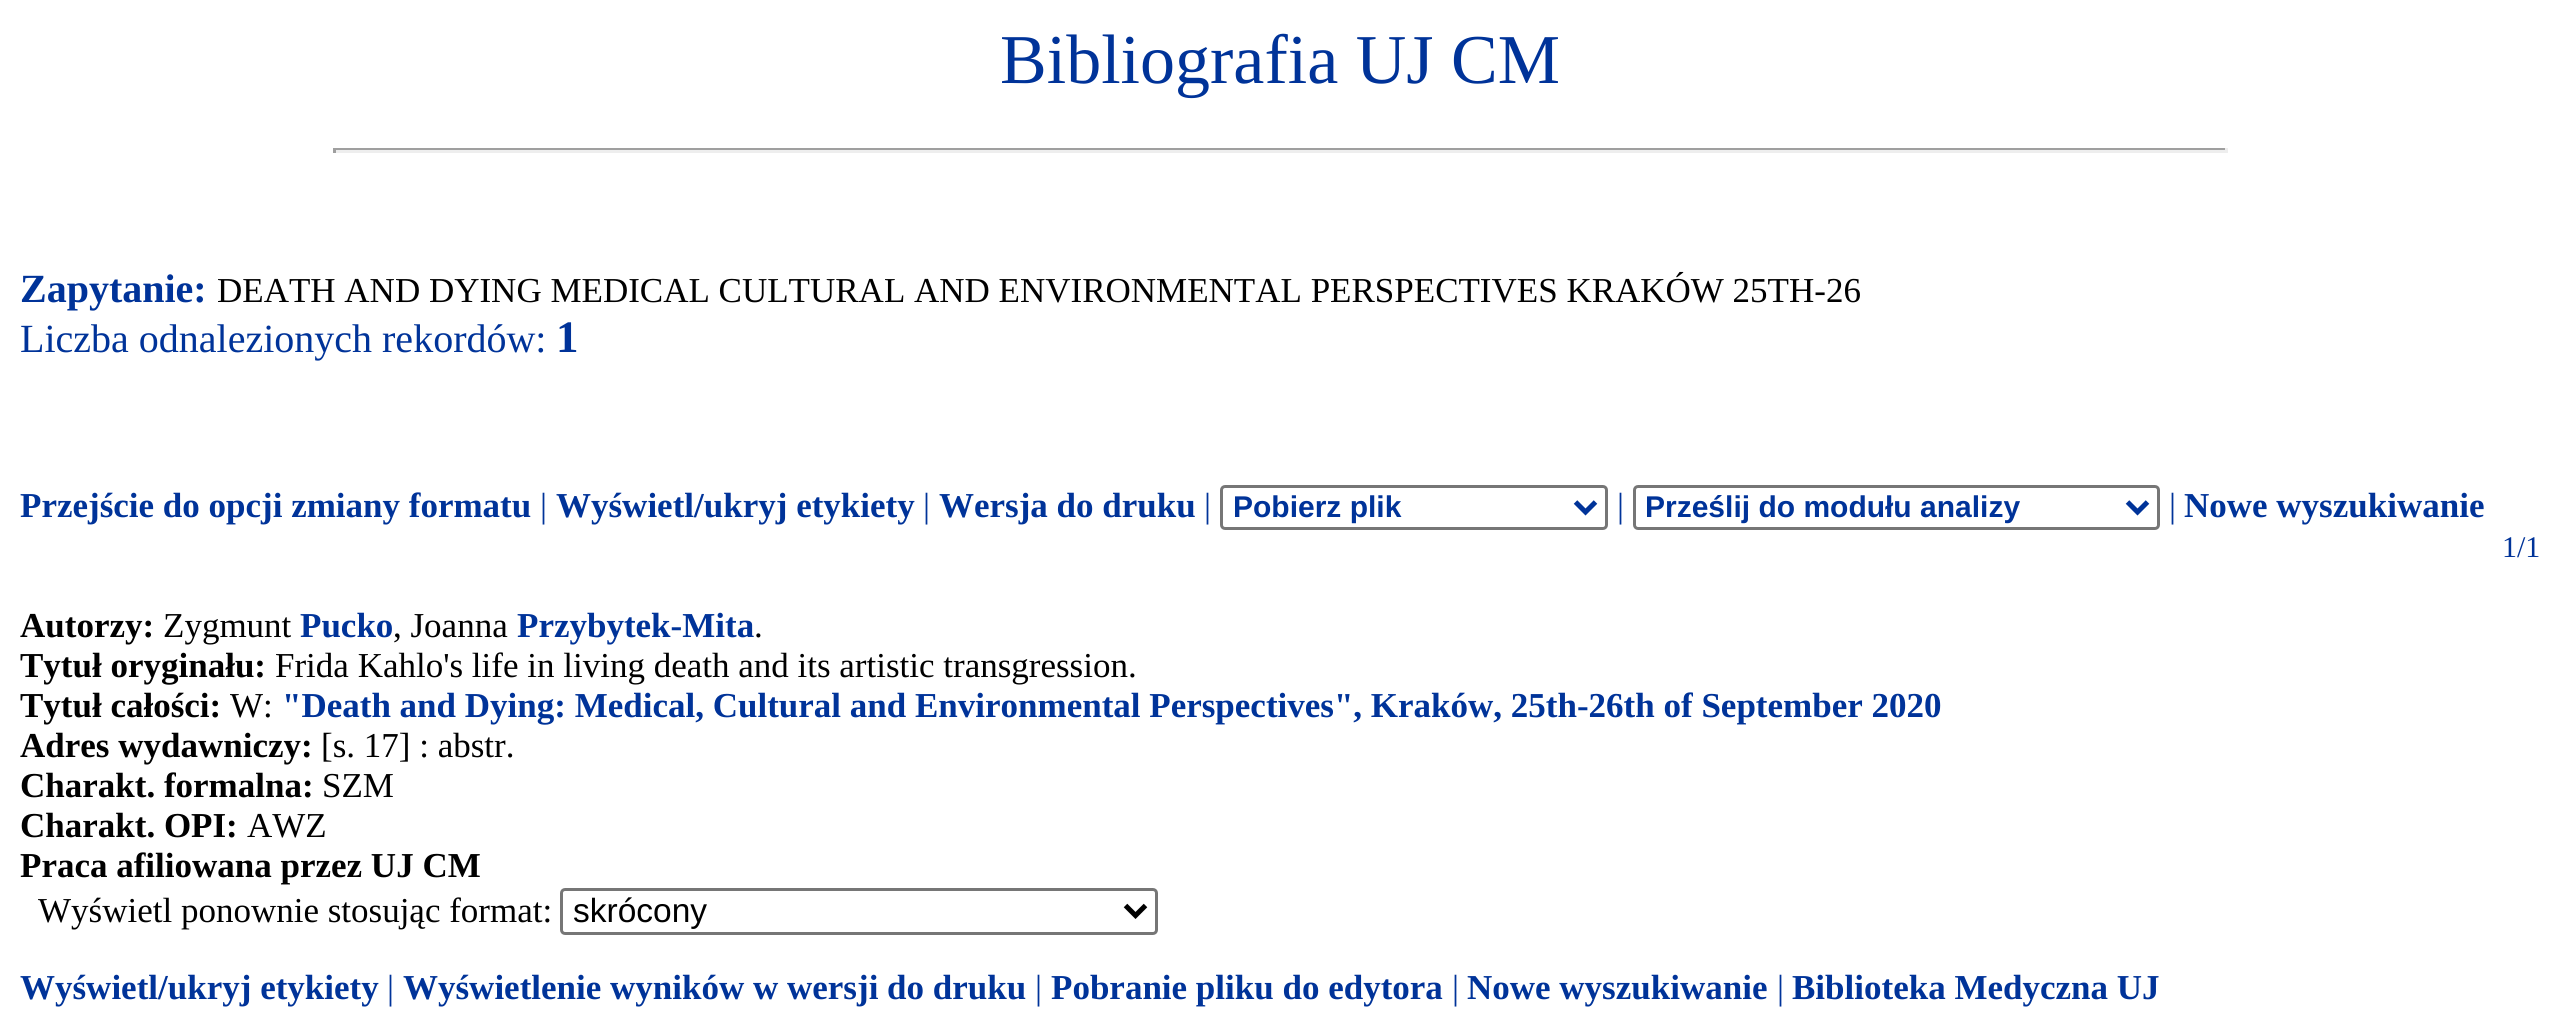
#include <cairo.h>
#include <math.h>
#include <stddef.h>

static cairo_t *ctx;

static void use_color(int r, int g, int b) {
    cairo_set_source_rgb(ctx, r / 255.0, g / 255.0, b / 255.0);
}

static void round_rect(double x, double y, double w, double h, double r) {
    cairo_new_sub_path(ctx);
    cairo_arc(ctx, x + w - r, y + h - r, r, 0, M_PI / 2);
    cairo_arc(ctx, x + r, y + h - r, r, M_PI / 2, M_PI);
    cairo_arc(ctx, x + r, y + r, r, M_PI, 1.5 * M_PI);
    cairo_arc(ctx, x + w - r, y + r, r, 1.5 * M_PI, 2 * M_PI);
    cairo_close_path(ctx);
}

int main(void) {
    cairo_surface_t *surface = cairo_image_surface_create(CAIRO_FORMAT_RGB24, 2560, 1026);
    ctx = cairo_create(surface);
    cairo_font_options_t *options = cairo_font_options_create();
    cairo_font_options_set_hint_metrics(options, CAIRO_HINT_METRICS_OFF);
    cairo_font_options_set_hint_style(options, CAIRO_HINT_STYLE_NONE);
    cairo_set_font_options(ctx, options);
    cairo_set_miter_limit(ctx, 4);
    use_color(255, 255, 255);
    cairo_paint(ctx);
    cairo_select_font_face(ctx, "Liberation Serif", CAIRO_FONT_SLANT_NORMAL, CAIRO_FONT_WEIGHT_NORMAL);
    cairo_set_font_size(ctx, 70);
    use_color(0, 51, 153);
    cairo_move_to(ctx, 1000, 83);
    cairo_show_text(ctx, "Bibliografia UJ CM");
    use_color(159, 159, 159);
    cairo_rectangle(ctx, 333, 148, 1895, 2);
    cairo_fill(ctx);
    use_color(238, 238, 238);
    cairo_rectangle(ctx, 2225, 148, 3, 5);
    cairo_fill(ctx);
    cairo_rectangle(ctx, 333, 150, 1895, 3);
    cairo_fill(ctx);
    use_color(159, 159, 159);
    cairo_rectangle(ctx, 333, 148, 3, 5);
    cairo_fill(ctx);
    cairo_set_font_size(ctx, 35);
    use_color(0, 0, 0);
    cairo_move_to(ctx, 217, 302);
    cairo_show_text(ctx, "DEATH AND DYING MEDICAL CULTURAL AND ENVIRONMENTAL PERSPECTIVES KRAKÓW 25TH-26");
    cairo_set_font_size(ctx, 40);
    use_color(0, 51, 153);
    cairo_move_to(ctx, 20, 352);
    cairo_show_text(ctx, "Liczba odnalezionych rekordów:");
    cairo_select_font_face(ctx, "Liberation Serif", CAIRO_FONT_SLANT_NORMAL, CAIRO_FONT_WEIGHT_BOLD);
    cairo_set_font_size(ctx, 45);
    cairo_move_to(ctx, 556, 352);
    cairo_show_text(ctx, "1");
    cairo_set_font_size(ctx, 35);
    cairo_move_to(ctx, 20, 517);
    cairo_show_text(ctx, "Przejście do opcji zmiany formatu");
    cairo_select_font_face(ctx, "Liberation Serif", CAIRO_FONT_SLANT_NORMAL, CAIRO_FONT_WEIGHT_NORMAL);
    cairo_move_to(ctx, 540, 517);
    cairo_show_text(ctx, "|");
    cairo_select_font_face(ctx, "Liberation Serif", CAIRO_FONT_SLANT_NORMAL, CAIRO_FONT_WEIGHT_BOLD);
    cairo_move_to(ctx, 556, 517);
    cairo_show_text(ctx, "Wyświetl/ukryj etykiety");
    cairo_select_font_face(ctx, "Liberation Serif", CAIRO_FONT_SLANT_NORMAL, CAIRO_FONT_WEIGHT_NORMAL);
    cairo_move_to(ctx, 923, 517);
    cairo_show_text(ctx, "|");
    cairo_select_font_face(ctx, "Liberation Serif", CAIRO_FONT_SLANT_NORMAL, CAIRO_FONT_WEIGHT_BOLD);
    cairo_move_to(ctx, 939, 517);
    cairo_show_text(ctx, "Wersja do druku");
    cairo_select_font_face(ctx, "Liberation Serif", CAIRO_FONT_SLANT_NORMAL, CAIRO_FONT_WEIGHT_NORMAL);
    cairo_move_to(ctx, 1204, 517);
    cairo_show_text(ctx, "|");
    round_rect(1221.5, 486.5, 385, 42, 3.5);
    use_color(118, 118, 118);
    cairo_set_line_width(ctx, 3);
    cairo_stroke(ctx);
    cairo_new_path(ctx);
    cairo_move_to(ctx, 1575.5, 502);
    cairo_line_to(ctx, 1585.5, 512);
    cairo_line_to(ctx, 1595.5, 502);
    use_color(0, 51, 153);
    cairo_set_line_width(ctx, 5);
    cairo_stroke(ctx);
    cairo_select_font_face(ctx, "Liberation Sans", CAIRO_FONT_SLANT_NORMAL, CAIRO_FONT_WEIGHT_BOLD);
    cairo_set_font_size(ctx, 30);
    cairo_move_to(ctx, 1233, 517);
    cairo_show_text(ctx, "Pobierz plik");
    cairo_select_font_face(ctx, "Liberation Serif", CAIRO_FONT_SLANT_NORMAL, CAIRO_FONT_WEIGHT_NORMAL);
    cairo_set_font_size(ctx, 35);
    cairo_move_to(ctx, 1617, 517);
    cairo_show_text(ctx, "|");
    round_rect(1634.5, 486.5, 524, 42, 3.5);
    use_color(118, 118, 118);
    cairo_set_line_width(ctx, 3);
    cairo_stroke(ctx);
    cairo_new_path(ctx);
    cairo_move_to(ctx, 2127.5, 502);
    cairo_line_to(ctx, 2137.5, 512);
    cairo_line_to(ctx, 2147.5, 502);
    use_color(0, 51, 153);
    cairo_set_line_width(ctx, 5);
    cairo_stroke(ctx);
    cairo_select_font_face(ctx, "Liberation Sans", CAIRO_FONT_SLANT_NORMAL, CAIRO_FONT_WEIGHT_BOLD);
    cairo_set_font_size(ctx, 30);
    cairo_move_to(ctx, 1645, 517);
    cairo_show_text(ctx, "Prześlij do modułu analizy");
    cairo_select_font_face(ctx, "Liberation Serif", CAIRO_FONT_SLANT_NORMAL, CAIRO_FONT_WEIGHT_NORMAL);
    cairo_set_font_size(ctx, 35);
    cairo_move_to(ctx, 2169, 517);
    cairo_show_text(ctx, "|");
    cairo_select_font_face(ctx, "Liberation Serif", CAIRO_FONT_SLANT_NORMAL, CAIRO_FONT_WEIGHT_BOLD);
    cairo_move_to(ctx, 2184, 517);
    cairo_show_text(ctx, "Nowe wyszukiwanie");
    cairo_select_font_face(ctx, "Liberation Serif", CAIRO_FONT_SLANT_NORMAL, CAIRO_FONT_WEIGHT_NORMAL);
    cairo_set_font_size(ctx, 30);
    cairo_move_to(ctx, 2502, 557);
    cairo_show_text(ctx, "1/1");
    cairo_select_font_face(ctx, "Liberation Serif", CAIRO_FONT_SLANT_NORMAL, CAIRO_FONT_WEIGHT_BOLD);
    cairo_set_font_size(ctx, 35);
    use_color(0, 0, 0);
    cairo_move_to(ctx, 20, 637);
    cairo_show_text(ctx, "Autorzy:");
    cairo_select_font_face(ctx, "Liberation Serif", CAIRO_FONT_SLANT_NORMAL, CAIRO_FONT_WEIGHT_NORMAL);
    cairo_move_to(ctx, 163, 637);
    cairo_show_text(ctx, "Zygmunt");
    cairo_select_font_face(ctx, "Liberation Serif", CAIRO_FONT_SLANT_NORMAL, CAIRO_FONT_WEIGHT_BOLD);
    use_color(0, 51, 153);
    cairo_move_to(ctx, 300, 637);
    cairo_show_text(ctx, "Pucko");
    cairo_select_font_face(ctx, "Liberation Serif", CAIRO_FONT_SLANT_NORMAL, CAIRO_FONT_WEIGHT_NORMAL);
    use_color(0, 0, 0);
    cairo_move_to(ctx, 393, 637);
    cairo_show_text(ctx, ", Joanna");
    cairo_select_font_face(ctx, "Liberation Serif", CAIRO_FONT_SLANT_NORMAL, CAIRO_FONT_WEIGHT_BOLD);
    use_color(0, 51, 153);
    cairo_move_to(ctx, 517, 637);
    cairo_show_text(ctx, "Przybytek-Mita");
    cairo_select_font_face(ctx, "Liberation Serif", CAIRO_FONT_SLANT_NORMAL, CAIRO_FONT_WEIGHT_NORMAL);
    use_color(0, 0, 0);
    cairo_move_to(ctx, 754, 637);
    cairo_show_text(ctx, ".");
    cairo_select_font_face(ctx, "Liberation Serif", CAIRO_FONT_SLANT_NORMAL, CAIRO_FONT_WEIGHT_BOLD);
    cairo_move_to(ctx, 20, 677);
    cairo_show_text(ctx, "Tytuł oryginału:");
    cairo_select_font_face(ctx, "Liberation Serif", CAIRO_FONT_SLANT_NORMAL, CAIRO_FONT_WEIGHT_NORMAL);
    cairo_move_to(ctx, 275, 677);
    cairo_show_text(ctx, "Frida Kahlo's life in living death and its artistic transgression.");
    cairo_select_font_face(ctx, "Liberation Serif", CAIRO_FONT_SLANT_NORMAL, CAIRO_FONT_WEIGHT_BOLD);
    cairo_move_to(ctx, 20, 717);
    cairo_show_text(ctx, "Tytuł całości:");
    cairo_select_font_face(ctx, "Liberation Serif", CAIRO_FONT_SLANT_NORMAL, CAIRO_FONT_WEIGHT_NORMAL);
    cairo_move_to(ctx, 230, 717);
    cairo_show_text(ctx, "W:");
    cairo_select_font_face(ctx, "Liberation Serif", CAIRO_FONT_SLANT_NORMAL, CAIRO_FONT_WEIGHT_BOLD);
    use_color(0, 51, 153);
    cairo_move_to(ctx, 282, 717);
    cairo_show_text(ctx, "\"Death and Dying: Medical, Cultural and Environmental Perspectives\", Kraków, 25th-26th of September 2020");
    use_color(0, 0, 0);
    cairo_move_to(ctx, 20, 757);
    cairo_show_text(ctx, "Adres wydawniczy:");
    cairo_select_font_face(ctx, "Liberation Serif", CAIRO_FONT_SLANT_NORMAL, CAIRO_FONT_WEIGHT_NORMAL);
    cairo_move_to(ctx, 321, 757);
    cairo_show_text(ctx, "[s. 17] : abstr.");
    cairo_select_font_face(ctx, "Liberation Serif", CAIRO_FONT_SLANT_NORMAL, CAIRO_FONT_WEIGHT_BOLD);
    cairo_move_to(ctx, 20, 797);
    cairo_show_text(ctx, "Charakt. formalna:");
    cairo_select_font_face(ctx, "Liberation Serif", CAIRO_FONT_SLANT_NORMAL, CAIRO_FONT_WEIGHT_NORMAL);
    cairo_move_to(ctx, 322, 797);
    cairo_show_text(ctx, "SZM");
    cairo_select_font_face(ctx, "Liberation Serif", CAIRO_FONT_SLANT_NORMAL, CAIRO_FONT_WEIGHT_BOLD);
    cairo_move_to(ctx, 20, 837);
    cairo_show_text(ctx, "Charakt. OPI:");
    cairo_select_font_face(ctx, "Liberation Serif", CAIRO_FONT_SLANT_NORMAL, CAIRO_FONT_WEIGHT_NORMAL);
    cairo_move_to(ctx, 247, 837);
    cairo_show_text(ctx, "AWZ");
    cairo_select_font_face(ctx, "Liberation Serif", CAIRO_FONT_SLANT_NORMAL, CAIRO_FONT_WEIGHT_BOLD);
    cairo_move_to(ctx, 20, 877);
    cairo_show_text(ctx, "Praca afiliowana przez UJ CM");
    cairo_select_font_face(ctx, "Liberation Serif", CAIRO_FONT_SLANT_NORMAL, CAIRO_FONT_WEIGHT_NORMAL);
    cairo_move_to(ctx, 38, 922);
    cairo_show_text(ctx, "Wyświetl ponownie stosując format:");
    round_rect(561.5, 889.5, 595, 44, 3.5);
    use_color(118, 118, 118);
    cairo_set_line_width(ctx, 3);
    cairo_stroke(ctx);
    cairo_new_path(ctx);
    cairo_move_to(ctx, 1125.5, 905.5);
    cairo_line_to(ctx, 1135.5, 915.5);
    cairo_line_to(ctx, 1145.5, 905.5);
    use_color(0, 0, 0);
    cairo_set_line_width(ctx, 5);
    cairo_stroke(ctx);
    cairo_select_font_face(ctx, "Liberation Sans", CAIRO_FONT_SLANT_NORMAL, CAIRO_FONT_WEIGHT_NORMAL);
    cairo_set_font_size(ctx, 33.5);
    cairo_move_to(ctx, 573, 922);
    cairo_show_text(ctx, "skrócony");
    cairo_select_font_face(ctx, "Liberation Serif", CAIRO_FONT_SLANT_NORMAL, CAIRO_FONT_WEIGHT_BOLD);
    cairo_set_font_size(ctx, 35);
    use_color(0, 51, 153);
    cairo_move_to(ctx, 20, 999);
    cairo_show_text(ctx, "Wyświetl/ukryj etykiety");
    cairo_select_font_face(ctx, "Liberation Serif", CAIRO_FONT_SLANT_NORMAL, CAIRO_FONT_WEIGHT_NORMAL);
    cairo_move_to(ctx, 387, 999);
    cairo_show_text(ctx, "|");
    cairo_select_font_face(ctx, "Liberation Serif", CAIRO_FONT_SLANT_NORMAL, CAIRO_FONT_WEIGHT_BOLD);
    cairo_move_to(ctx, 403, 999);
    cairo_show_text(ctx, "Wyświetlenie wyników w wersji do druku");
    cairo_select_font_face(ctx, "Liberation Serif", CAIRO_FONT_SLANT_NORMAL, CAIRO_FONT_WEIGHT_NORMAL);
    cairo_move_to(ctx, 1035, 999);
    cairo_show_text(ctx, "|");
    cairo_select_font_face(ctx, "Liberation Serif", CAIRO_FONT_SLANT_NORMAL, CAIRO_FONT_WEIGHT_BOLD);
    cairo_move_to(ctx, 1051, 999);
    cairo_show_text(ctx, "Pobranie pliku do edytora");
    cairo_select_font_face(ctx, "Liberation Serif", CAIRO_FONT_SLANT_NORMAL, CAIRO_FONT_WEIGHT_NORMAL);
    cairo_move_to(ctx, 1452, 999);
    cairo_show_text(ctx, "|");
    cairo_select_font_face(ctx, "Liberation Serif", CAIRO_FONT_SLANT_NORMAL, CAIRO_FONT_WEIGHT_BOLD);
    cairo_move_to(ctx, 1467, 999);
    cairo_show_text(ctx, "Nowe wyszukiwanie");
    cairo_select_font_face(ctx, "Liberation Serif", CAIRO_FONT_SLANT_NORMAL, CAIRO_FONT_WEIGHT_NORMAL);
    cairo_move_to(ctx, 1777, 999);
    cairo_show_text(ctx, "|");
    cairo_select_font_face(ctx, "Liberation Serif", CAIRO_FONT_SLANT_NORMAL, CAIRO_FONT_WEIGHT_BOLD);
    cairo_move_to(ctx, 1792, 999);
    cairo_show_text(ctx, "Biblioteka Medyczna UJ");
    cairo_set_font_size(ctx, 40);
    cairo_move_to(ctx, 20, 302);
    cairo_show_text(ctx, "Zapytanie:");
    cairo_surface_write_to_png(surface, "result.png");
    cairo_font_options_destroy(options);
    cairo_destroy(ctx);
    cairo_surface_destroy(surface);
    return 0;
}
